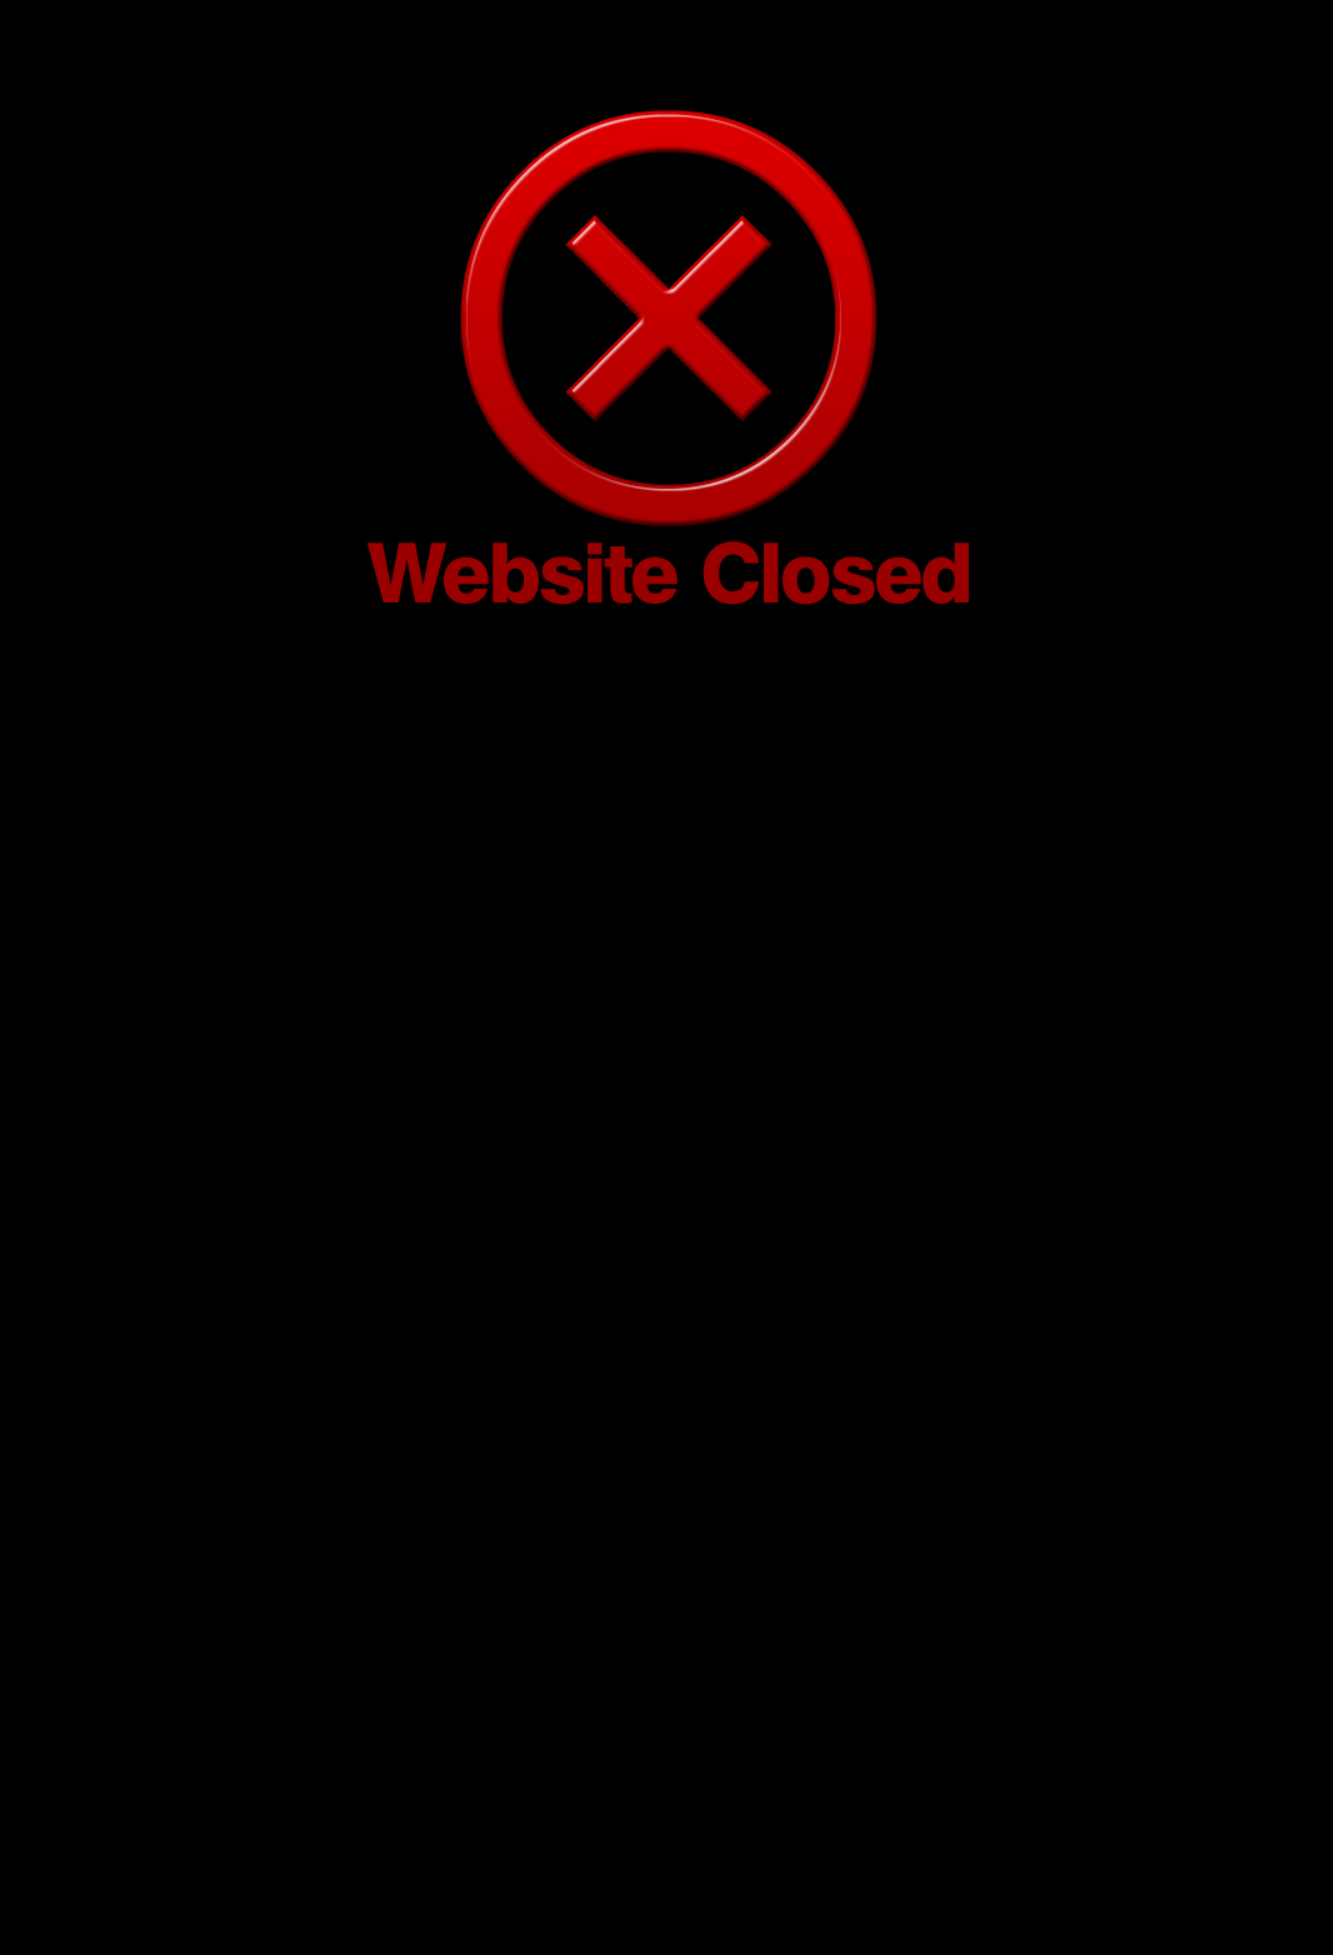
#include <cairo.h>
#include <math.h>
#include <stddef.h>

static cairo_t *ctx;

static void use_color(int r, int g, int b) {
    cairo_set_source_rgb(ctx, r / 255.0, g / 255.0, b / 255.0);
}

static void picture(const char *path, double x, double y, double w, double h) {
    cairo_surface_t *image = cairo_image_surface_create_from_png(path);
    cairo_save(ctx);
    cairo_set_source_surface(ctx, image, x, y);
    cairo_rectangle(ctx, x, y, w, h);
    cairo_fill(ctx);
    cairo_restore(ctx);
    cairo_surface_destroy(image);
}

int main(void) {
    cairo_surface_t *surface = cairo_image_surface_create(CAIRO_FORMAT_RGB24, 1333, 1955);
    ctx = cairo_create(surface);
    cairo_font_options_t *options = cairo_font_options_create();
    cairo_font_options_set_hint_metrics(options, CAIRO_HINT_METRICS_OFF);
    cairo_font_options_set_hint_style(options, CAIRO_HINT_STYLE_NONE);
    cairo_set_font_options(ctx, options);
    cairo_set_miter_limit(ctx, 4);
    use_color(0, 0, 0);
    cairo_paint(ctx);
    picture("img1.png", 366, 109, 603, 497);
    cairo_surface_write_to_png(surface, "result.png");
    cairo_font_options_destroy(options);
    cairo_destroy(ctx);
    cairo_surface_destroy(surface);
    return 0;
}
